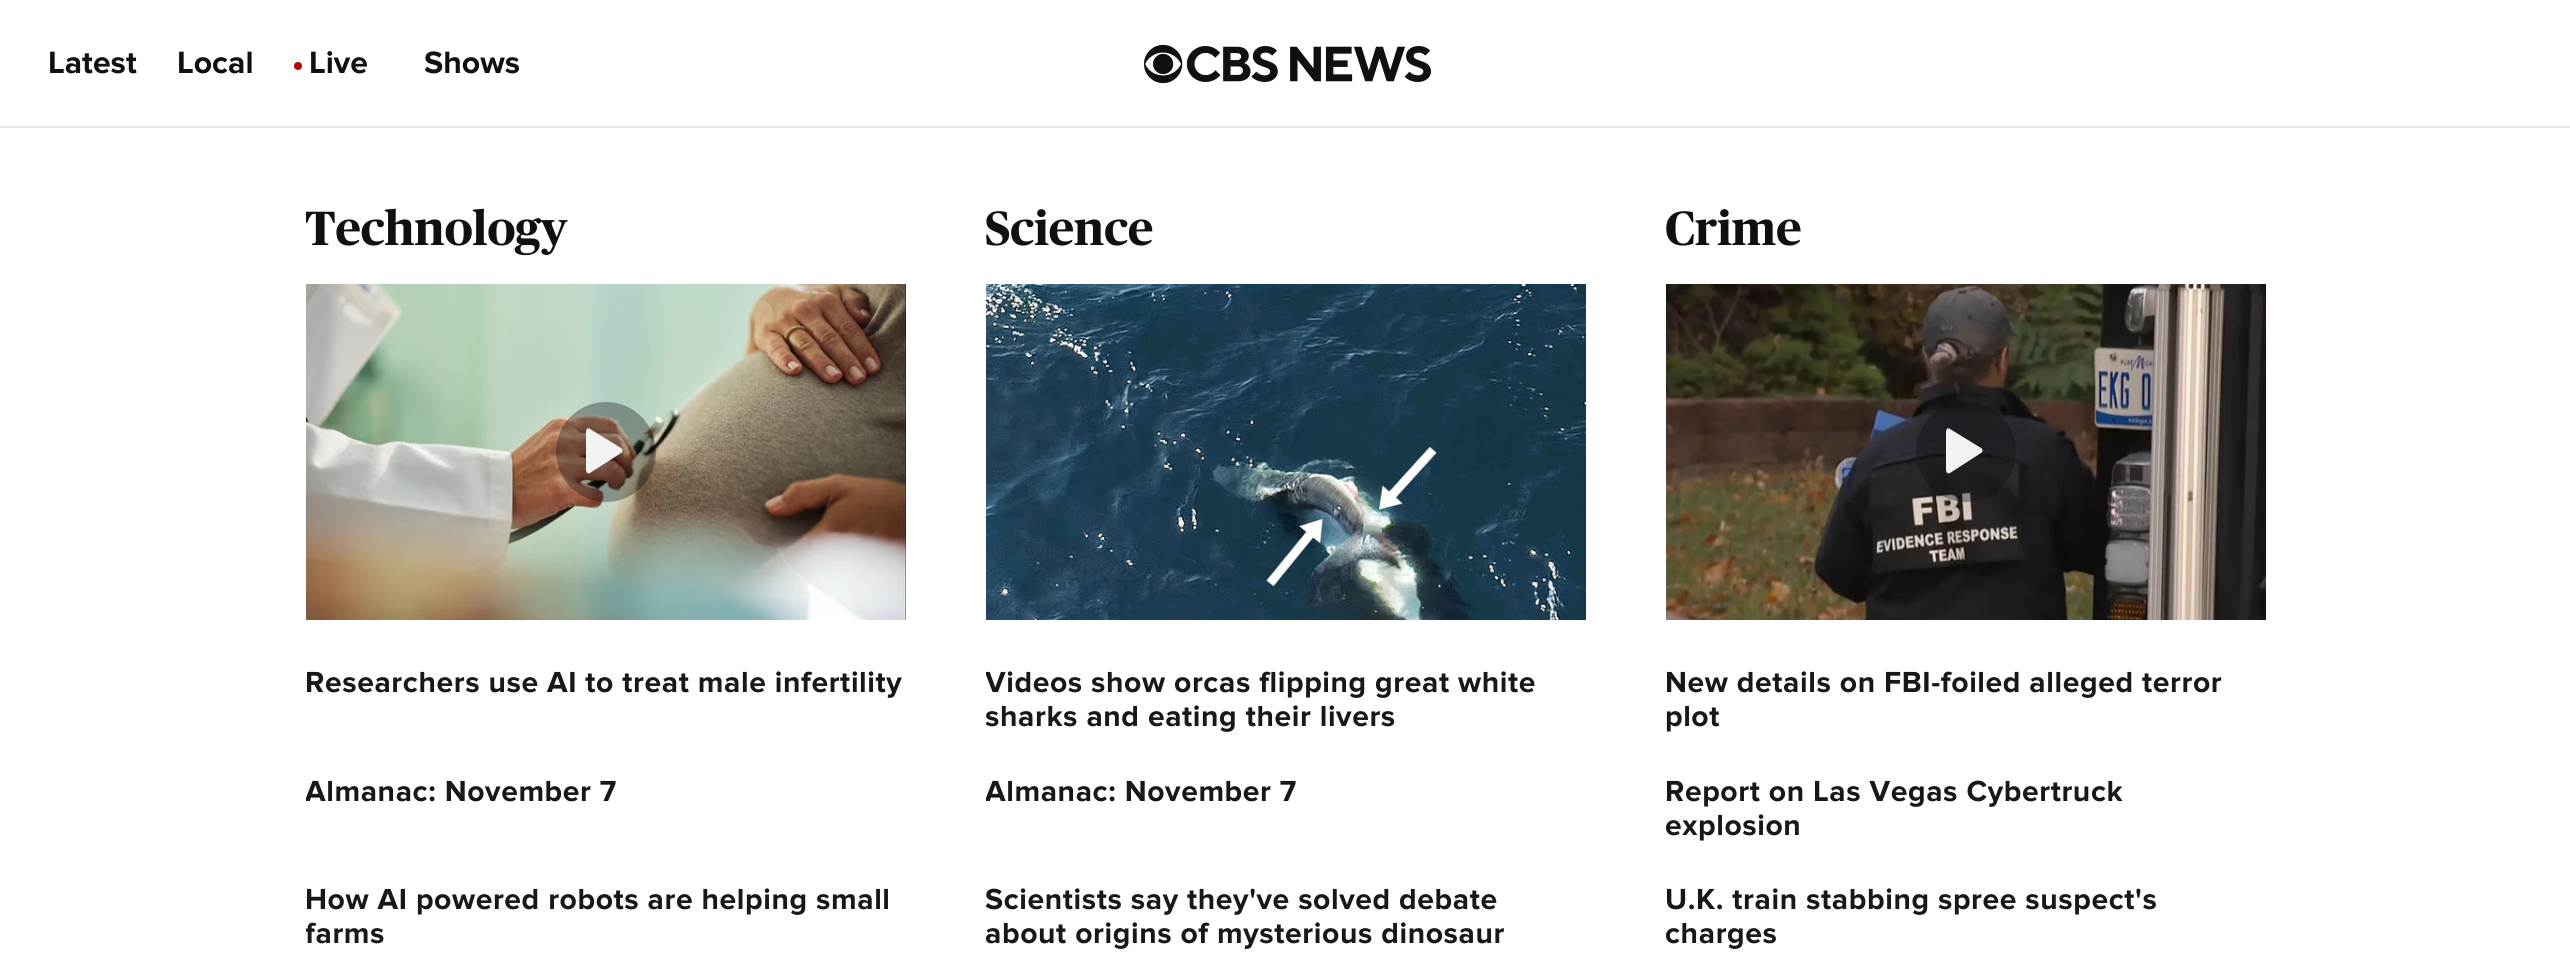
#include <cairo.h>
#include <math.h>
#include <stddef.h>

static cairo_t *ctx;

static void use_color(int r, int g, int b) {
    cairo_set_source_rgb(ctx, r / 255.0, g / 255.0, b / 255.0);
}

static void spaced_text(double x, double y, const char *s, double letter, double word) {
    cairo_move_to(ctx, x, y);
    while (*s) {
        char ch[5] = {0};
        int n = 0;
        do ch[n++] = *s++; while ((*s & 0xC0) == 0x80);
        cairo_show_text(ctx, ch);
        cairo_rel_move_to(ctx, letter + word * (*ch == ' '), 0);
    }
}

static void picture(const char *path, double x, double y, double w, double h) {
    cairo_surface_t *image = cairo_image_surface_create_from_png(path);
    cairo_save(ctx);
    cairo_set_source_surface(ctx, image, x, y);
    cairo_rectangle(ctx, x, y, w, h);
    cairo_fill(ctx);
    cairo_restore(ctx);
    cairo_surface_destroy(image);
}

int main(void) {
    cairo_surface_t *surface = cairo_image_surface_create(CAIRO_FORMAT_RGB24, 2570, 956);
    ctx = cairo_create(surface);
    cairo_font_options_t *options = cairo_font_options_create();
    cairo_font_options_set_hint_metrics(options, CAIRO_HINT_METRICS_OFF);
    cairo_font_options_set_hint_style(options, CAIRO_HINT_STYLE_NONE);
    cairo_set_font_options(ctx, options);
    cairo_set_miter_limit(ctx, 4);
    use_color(255, 255, 255);
    cairo_paint(ctx);
    use_color(232, 232, 232);
    cairo_rectangle(ctx, 0, 126, 2570, 2);
    cairo_fill(ctx);
    cairo_select_font_face(ctx, "Proxima Nova", CAIRO_FONT_SLANT_NORMAL, CAIRO_FONT_WEIGHT_BOLD);
    cairo_set_font_size(ctx, 32);
    use_color(16, 16, 16);
    cairo_move_to(ctx, 48, 73);
    cairo_show_text(ctx, "Latest");
    cairo_move_to(ctx, 177, 73);
    cairo_show_text(ctx, "Local");
    use_color(182, 5, 5);
    cairo_new_path(ctx);
    cairo_arc(ctx, 298, 66, 4, 0, 2 * M_PI);
    cairo_fill(ctx);
    use_color(16, 16, 16);
    cairo_move_to(ctx, 309, 73);
    cairo_show_text(ctx, "Live");
    cairo_move_to(ctx, 424, 73);
    cairo_show_text(ctx, "Shows");
    picture("img1.png", 1144, 44, 287, 40);
    cairo_save(ctx);
    cairo_rectangle(ctx, 306, 204, 600, 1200);
    cairo_clip(ctx);
    cairo_select_font_face(ctx, "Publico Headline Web", CAIRO_FONT_SLANT_NORMAL, CAIRO_FONT_WEIGHT_BOLD);
    cairo_set_font_size(ctx, 48);
    cairo_move_to(ctx, 305, 245);
    cairo_show_text(ctx, "Technology");
    cairo_restore(ctx);
    picture("img2.png", 306, 284, 600, 336);
    cairo_set_source_rgba(ctx, 0.063, 0.063, 0.063, 0.35);
    cairo_arc(ctx, 606, 452, 50, 0, 2 * M_PI);
    cairo_fill(ctx);
    use_color(242, 242, 242);
    cairo_set_fill_rule(ctx, CAIRO_FILL_RULE_EVEN_ODD);
    cairo_new_path(ctx);
    cairo_move_to(ctx, 621, 448);
    cairo_curve_to(ctx, 623, 449, 623, 452, 621, 453);
    cairo_line_to(ctx, 590, 473);
    cairo_curve_to(ctx, 588, 474, 586, 473, 586, 469);
    cairo_line_to(ctx, 586, 432);
    cairo_curve_to(ctx, 586, 429, 588, 427, 590, 429);
    cairo_close_path(ctx);
    cairo_fill(ctx);
    cairo_set_font_size(ctx, 30.1);
    use_color(24, 24, 24);
    spaced_text(305, 692, "Researchers use AI to treat male infertility", 0.6, 0);
    cairo_save(ctx);
    cairo_set_fill_rule(ctx, CAIRO_FILL_RULE_WINDING);
    cairo_rectangle(ctx, 306, 774, 310, 34);
    cairo_clip(ctx);
    spaced_text(305, 801, "Almanac: November 7", 0.6, 0);
    cairo_restore(ctx);
    spaced_text(305, 909, "How AI powered robots are helping small", 0.6, 0);
    cairo_save(ctx);
    cairo_set_fill_rule(ctx, CAIRO_FILL_RULE_WINDING);
    cairo_rectangle(ctx, 306, 882, 600, 68);
    cairo_clip(ctx);
    spaced_text(305, 943, "farms", 0.6, 0);
    cairo_restore(ctx);
    cairo_select_font_face(ctx, "Publico Headline Web", CAIRO_FONT_SLANT_NORMAL, CAIRO_FONT_WEIGHT_BOLD);
    cairo_set_font_size(ctx, 48);
    use_color(16, 16, 16);
    cairo_move_to(ctx, 985, 245);
    cairo_show_text(ctx, "Science");
    picture("img3.png", 986, 284, 600, 336);
    cairo_save(ctx);
    cairo_set_fill_rule(ctx, CAIRO_FILL_RULE_WINDING);
    cairo_rectangle(ctx, 986, 666, 600, 68);
    cairo_clip(ctx);
    cairo_select_font_face(ctx, "Proxima Nova", CAIRO_FONT_SLANT_NORMAL, CAIRO_FONT_WEIGHT_BOLD);
    cairo_set_font_size(ctx, 30.1);
    use_color(24, 24, 24);
    spaced_text(985, 692, "Videos show orcas flipping great white", 0.6, 0);
    cairo_restore(ctx);
    cairo_select_font_face(ctx, "Proxima Nova", CAIRO_FONT_SLANT_NORMAL, CAIRO_FONT_WEIGHT_BOLD);
    cairo_set_font_size(ctx, 30.1);
    use_color(24, 24, 24);
    spaced_text(985, 726, "sharks and eating their livers", 0.6, 0);
    cairo_save(ctx);
    cairo_set_fill_rule(ctx, CAIRO_FILL_RULE_WINDING);
    cairo_rectangle(ctx, 986, 774, 310, 34);
    cairo_clip(ctx);
    spaced_text(985, 801, "Almanac: November 7", 0.6, 0);
    cairo_restore(ctx);
    spaced_text(985, 909, "Scientists say they've solved debate", 0.6, 0);
    spaced_text(985, 943, "about origins of mysterious dinosaur", 0.6, 0);
    cairo_select_font_face(ctx, "Publico Headline Web", CAIRO_FONT_SLANT_NORMAL, CAIRO_FONT_WEIGHT_BOLD);
    cairo_set_font_size(ctx, 48);
    use_color(16, 16, 16);
    cairo_move_to(ctx, 1665, 245);
    cairo_show_text(ctx, "Crime");
    picture("img4.png", 1666, 284, 600, 336);
    cairo_set_source_rgba(ctx, 0.063, 0.063, 0.063, 0.35);
    cairo_arc(ctx, 1966, 452, 50, 0, 2 * M_PI);
    cairo_fill(ctx);
    use_color(242, 242, 242);
    cairo_new_path(ctx);
    cairo_move_to(ctx, 1981, 448);
    cairo_curve_to(ctx, 1983, 449, 1983, 452, 1981, 453);
    cairo_line_to(ctx, 1950, 473);
    cairo_curve_to(ctx, 1948, 474, 1946, 473, 1946, 469);
    cairo_line_to(ctx, 1946, 432);
    cairo_curve_to(ctx, 1946, 429, 1948, 427, 1950, 429);
    cairo_close_path(ctx);
    cairo_fill(ctx);
    cairo_select_font_face(ctx, "Proxima Nova", CAIRO_FONT_SLANT_NORMAL, CAIRO_FONT_WEIGHT_BOLD);
    cairo_set_font_size(ctx, 30.1);
    use_color(24, 24, 24);
    spaced_text(1665, 692, "New details on FBI-foiled alleged terror", 0.6, 0);
    spaced_text(1665, 726, "plot", 0.6, 0);
    spaced_text(1665, 801, "Report on Las Vegas Cybertruck", 0.6, 0);
    spaced_text(1665, 835, "explosion", 0.6, 0);
    spaced_text(1665, 909, "U.K. train stabbing spree suspect's", 0.6, 0);
    spaced_text(1665, 943, "charges", 0.6, 0);
    cairo_surface_write_to_png(surface, "result.png");
    cairo_font_options_destroy(options);
    cairo_destroy(ctx);
    cairo_surface_destroy(surface);
    return 0;
}
